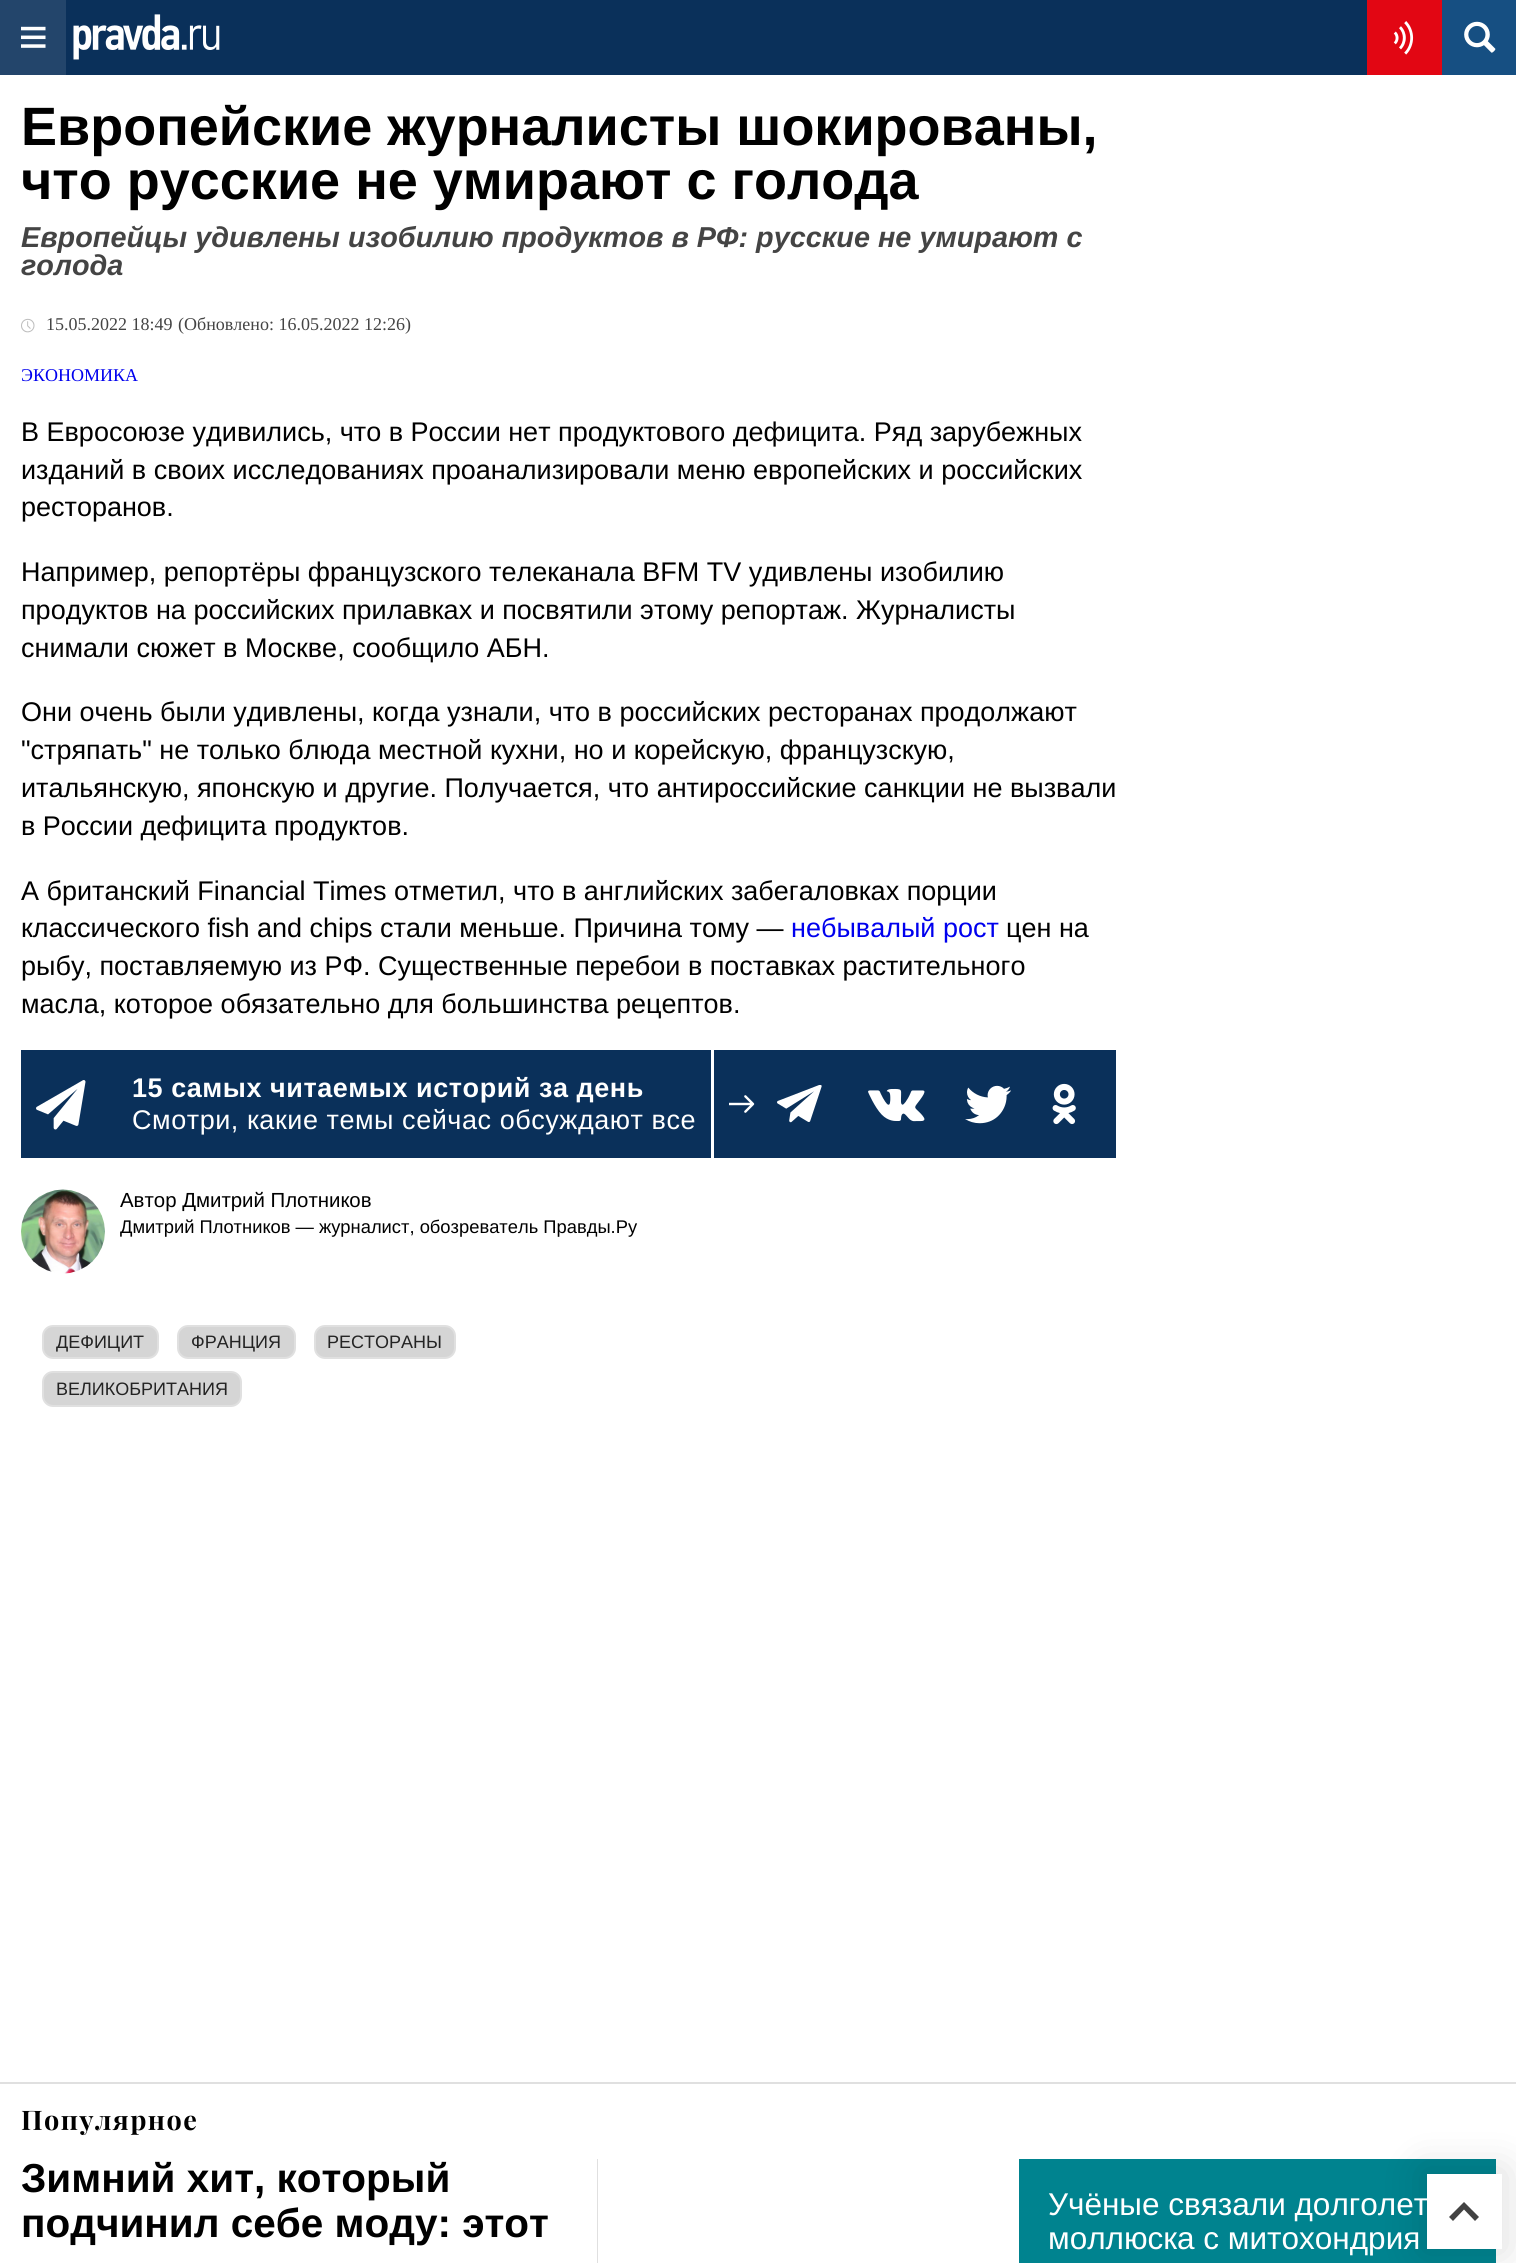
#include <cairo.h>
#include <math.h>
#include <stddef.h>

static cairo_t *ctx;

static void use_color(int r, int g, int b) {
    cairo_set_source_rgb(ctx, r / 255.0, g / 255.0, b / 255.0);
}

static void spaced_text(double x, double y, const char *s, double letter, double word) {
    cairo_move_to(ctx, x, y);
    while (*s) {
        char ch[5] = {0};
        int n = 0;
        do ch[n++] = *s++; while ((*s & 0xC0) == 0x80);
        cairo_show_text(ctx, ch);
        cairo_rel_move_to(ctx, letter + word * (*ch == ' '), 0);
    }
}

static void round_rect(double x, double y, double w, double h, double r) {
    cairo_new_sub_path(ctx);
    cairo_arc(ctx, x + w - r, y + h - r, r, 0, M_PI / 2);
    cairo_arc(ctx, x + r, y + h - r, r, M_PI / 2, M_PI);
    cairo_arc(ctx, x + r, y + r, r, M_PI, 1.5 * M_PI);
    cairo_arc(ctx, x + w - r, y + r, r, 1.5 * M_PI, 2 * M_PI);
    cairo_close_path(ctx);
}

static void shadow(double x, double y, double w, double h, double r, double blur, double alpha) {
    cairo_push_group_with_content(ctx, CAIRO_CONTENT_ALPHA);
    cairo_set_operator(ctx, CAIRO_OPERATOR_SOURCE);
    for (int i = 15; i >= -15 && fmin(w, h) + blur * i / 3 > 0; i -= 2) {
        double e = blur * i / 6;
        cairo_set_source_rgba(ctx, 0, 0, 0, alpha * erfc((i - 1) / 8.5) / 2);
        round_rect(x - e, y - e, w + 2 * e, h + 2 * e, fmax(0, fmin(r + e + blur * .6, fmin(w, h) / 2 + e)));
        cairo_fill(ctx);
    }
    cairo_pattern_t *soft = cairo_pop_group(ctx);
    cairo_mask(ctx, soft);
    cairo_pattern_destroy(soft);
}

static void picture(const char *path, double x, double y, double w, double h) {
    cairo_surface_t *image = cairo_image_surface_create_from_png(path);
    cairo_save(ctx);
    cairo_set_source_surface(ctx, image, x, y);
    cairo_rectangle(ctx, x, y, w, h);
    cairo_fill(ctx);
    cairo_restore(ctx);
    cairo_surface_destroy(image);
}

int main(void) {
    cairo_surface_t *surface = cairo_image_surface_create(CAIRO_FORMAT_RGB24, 1516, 2263);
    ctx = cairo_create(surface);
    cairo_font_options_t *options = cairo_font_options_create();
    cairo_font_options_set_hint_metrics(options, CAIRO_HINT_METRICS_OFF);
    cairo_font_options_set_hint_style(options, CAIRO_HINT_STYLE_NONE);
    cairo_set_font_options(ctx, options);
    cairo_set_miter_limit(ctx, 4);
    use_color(255, 255, 255);
    cairo_paint(ctx);
    use_color(10, 48, 90);
    cairo_rectangle(ctx, 66, 0, 1301, 75);
    cairo_fill(ctx);
    use_color(35, 69, 107);
    cairo_rectangle(ctx, 0, 0, 66, 75);
    cairo_fill(ctx);
    picture("img1.png", 21, 26, 25, 22);
    picture("img2.png", 73, 14, 147, 46);
    use_color(226, 6, 19);
    cairo_rectangle(ctx, 1367, 0, 75, 75);
    cairo_fill(ctx);
    picture("img3.png", 1393, 21, 21, 34);
    use_color(22, 79, 130);
    cairo_rectangle(ctx, 1442, 0, 74, 75);
    cairo_fill(ctx);
    picture("img4.png", 1464, 21, 32, 32);
    use_color(224, 224, 224);
    cairo_rectangle(ctx, 0, 2082, 1516, 2);
    cairo_fill(ctx);
    cairo_select_font_face(ctx, "Liberation Sans", CAIRO_FONT_SLANT_NORMAL, CAIRO_FONT_WEIGHT_BOLD);
    cairo_set_font_size(ctx, 54);
    use_color(0, 0, 0);
    cairo_move_to(ctx, 21, 145);
    cairo_show_text(ctx, "Европейские журналисты шокированы,");
    cairo_move_to(ctx, 21, 199);
    cairo_show_text(ctx, "что русские не умирают с голода");
    cairo_select_font_face(ctx, "Liberation Sans", CAIRO_FONT_SLANT_ITALIC, CAIRO_FONT_WEIGHT_BOLD);
    cairo_set_font_size(ctx, 28.8);
    use_color(68, 68, 68);
    cairo_move_to(ctx, 21, 247);
    cairo_show_text(ctx, "Европейцы удивлены изобилию продуктов в РФ: русские не умирают с");
    cairo_move_to(ctx, 21, 275);
    cairo_show_text(ctx, "голода");
    picture("img5.png", 21, 318, 14, 15);
    cairo_select_font_face(ctx, "Liberation Serif", CAIRO_FONT_SLANT_NORMAL, CAIRO_FONT_WEIGHT_NORMAL);
    cairo_set_font_size(ctx, 18);
    cairo_move_to(ctx, 46, 330);
    cairo_show_text(ctx, "15.05.2022 18:49");
    cairo_move_to(ctx, 178, 330);
    cairo_show_text(ctx, "(Обновлено: 16.05.2022 12:26)");
    use_color(0, 0, 238);
    cairo_move_to(ctx, 21, 381);
    cairo_show_text(ctx, "ЭКОНОМИКА");
    cairo_select_font_face(ctx, "Liberation Sans", CAIRO_FONT_SLANT_NORMAL, CAIRO_FONT_WEIGHT_NORMAL);
    cairo_set_font_size(ctx, 27);
    use_color(0, 0, 0);
    cairo_move_to(ctx, 21, 441);
    cairo_show_text(ctx, "В Евросоюзе удивились, что в России нет продуктового дефицита. Ряд зарубежных");
    cairo_move_to(ctx, 21, 479);
    cairo_show_text(ctx, "изданий в своих исследованиях проанализировали меню европейских и российских");
    cairo_move_to(ctx, 21, 516);
    cairo_show_text(ctx, "ресторанов.");
    cairo_move_to(ctx, 21, 581);
    cairo_show_text(ctx, "Например, репортёры французского телеканала BFM TV удивлены изобилию");
    cairo_move_to(ctx, 21, 619);
    cairo_show_text(ctx, "продуктов на российских прилавках и посвятили этому репортаж. Журналисты");
    cairo_move_to(ctx, 21, 657);
    cairo_show_text(ctx, "снимали сюжет в Москве, сообщило АБН.");
    cairo_move_to(ctx, 21, 721);
    cairo_show_text(ctx, "Они очень были удивлены, когда узнали, что в российских ресторанах продолжают");
    cairo_move_to(ctx, 21, 759);
    cairo_show_text(ctx, "\"стряпать\" не только блюда местной кухни, но и корейскую, французскую,");
    cairo_move_to(ctx, 21, 797);
    cairo_show_text(ctx, "итальянскую, японскую и другие. Получается, что антироссийские санкции не вызвали");
    cairo_move_to(ctx, 21, 835);
    cairo_show_text(ctx, "в России дефицита продуктов.");
    cairo_move_to(ctx, 21, 900);
    cairo_show_text(ctx, "А британский Financial Times отметил, что в английских забегаловках порции");
    cairo_move_to(ctx, 21, 937);
    cairo_show_text(ctx, "классического fish and chips стали меньше. Причина тому —");
    use_color(0, 0, 238);
    cairo_move_to(ctx, 791, 937);
    cairo_show_text(ctx, "небывалый рост");
    use_color(0, 0, 0);
    cairo_move_to(ctx, 1006, 937);
    cairo_show_text(ctx, "цен на");
    cairo_move_to(ctx, 21, 975);
    cairo_show_text(ctx, "рыбу, поставляемую из РФ. Существенные перебои в поставках растительного");
    cairo_move_to(ctx, 21, 1013);
    cairo_show_text(ctx, "масла, которое обязательно для большинства рецептов.");
    use_color(10, 48, 90);
    cairo_rectangle(ctx, 21, 1050, 1095, 108);
    cairo_fill(ctx);
    use_color(255, 255, 255);
    cairo_rectangle(ctx, 711, 1050, 3, 108);
    cairo_fill(ctx);
    picture("img6.png", 36, 1080, 50, 50);
    cairo_select_font_face(ctx, "Liberation Sans", CAIRO_FONT_SLANT_NORMAL, CAIRO_FONT_WEIGHT_BOLD);
    spaced_text(132, 1097, "15 самых читаемых историй за день", 0.55, 0);
    cairo_select_font_face(ctx, "Liberation Sans", CAIRO_FONT_SLANT_NORMAL, CAIRO_FONT_WEIGHT_NORMAL);
    spaced_text(132, 1129, "Смотри, какие темы сейчас обсуждают все", 0.55, 0);
    picture("img7.png", 729, 1095, 26, 18);
    picture("img8.png", 777, 1085, 45, 38);
    picture("img9.png", 868, 1088, 57, 34);
    picture("img10.png", 965, 1085, 46, 39);
    picture("img11.png", 1052, 1083, 24, 42);
    picture("img12.png", 21, 1189, 84, 85);
    cairo_set_font_size(ctx, 20.4);
    use_color(0, 0, 0);
    cairo_move_to(ctx, 120, 1207);
    cairo_show_text(ctx, "Автор Дмитрий Плотников");
    cairo_set_font_size(ctx, 18.35);
    cairo_move_to(ctx, 120, 1233);
    cairo_show_text(ctx, "Дмитрий Плотников — журналист, обозреватель Правды.Ру");
    use_color(213, 213, 213);
    round_rect(43, 1326, 115, 32, 10);
    cairo_fill_preserve(ctx);
    use_color(224, 224, 224);
    cairo_stroke(ctx);
    cairo_set_font_size(ctx, 18);
    use_color(35, 35, 35);
    cairo_move_to(ctx, 56, 1348);
    cairo_show_text(ctx, "ДЕФИЦИТ");
    use_color(213, 213, 213);
    round_rect(178, 1326, 117, 32, 10);
    cairo_fill_preserve(ctx);
    use_color(224, 224, 224);
    cairo_stroke(ctx);
    use_color(35, 35, 35);
    cairo_move_to(ctx, 191, 1348);
    cairo_show_text(ctx, "ФРАНЦИЯ");
    use_color(213, 213, 213);
    round_rect(315, 1326, 140, 32, 10);
    cairo_fill_preserve(ctx);
    use_color(224, 224, 224);
    cairo_stroke(ctx);
    use_color(35, 35, 35);
    cairo_move_to(ctx, 327, 1348);
    cairo_show_text(ctx, "РЕСТОРАНЫ");
    use_color(213, 213, 213);
    round_rect(43, 1372, 198, 34, 10);
    cairo_fill_preserve(ctx);
    use_color(224, 224, 224);
    cairo_stroke(ctx);
    use_color(35, 35, 35);
    cairo_move_to(ctx, 56, 1395);
    cairo_show_text(ctx, "ВЕЛИКОБРИТАНИЯ");
    cairo_select_font_face(ctx, "Playfair Display", CAIRO_FONT_SLANT_NORMAL, CAIRO_FONT_WEIGHT_BOLD);
    cairo_set_font_size(ctx, 27);
    use_color(0, 0, 0);
    spaced_text(21, 2130, "Популярное", 1.5, 0);
    cairo_select_font_face(ctx, "Liberation Sans", CAIRO_FONT_SLANT_NORMAL, CAIRO_FONT_WEIGHT_BOLD);
    cairo_set_font_size(ctx, 40.5);
    cairo_move_to(ctx, 21, 2192);
    cairo_show_text(ctx, "Зимний хит, который");
    cairo_move_to(ctx, 21, 2237);
    cairo_show_text(ctx, "подчинил себе моду: этот");
    use_color(224, 224, 224);
    cairo_new_path(ctx);
    cairo_move_to(ctx, 597, 2159);
    cairo_line_to(ctx, 597, 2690);
    cairo_line_to(ctx, 996, 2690);
    cairo_line_to(ctx, 598, 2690);
    cairo_line_to(ctx, 598, 2159);
    cairo_close_path(ctx);
    cairo_fill(ctx);
    use_color(0, 131, 143);
    cairo_rectangle(ctx, 1019, 2159, 477, 104);
    cairo_fill(ctx);
    use_color(0, 0, 0);
    shadow(1422, 2169, 84, 84, 0, 20, 0.13);
    use_color(255, 255, 255);
    cairo_rectangle(ctx, 1427, 2174, 75, 75);
    cairo_fill(ctx);
    cairo_select_font_face(ctx, "Liberation Sans", CAIRO_FONT_SLANT_NORMAL, CAIRO_FONT_WEIGHT_NORMAL);
    cairo_set_font_size(ctx, 31.5);
    cairo_move_to(ctx, 1048, 2215);
    cairo_show_text(ctx, "Учёные связали долголет");
    cairo_move_to(ctx, 1048, 2249);
    cairo_show_text(ctx, "моллюска с митохондрия");
    use_color(66, 66, 66);
    cairo_new_path(ctx);
    cairo_move_to(ctx, 1464, 2202);
    cairo_line_to(ctx, 1479, 2217);
    cairo_line_to(ctx, 1475, 2221);
    cairo_line_to(ctx, 1464, 2209.5);
    cairo_line_to(ctx, 1453, 2221);
    cairo_line_to(ctx, 1449, 2217);
    cairo_close_path(ctx);
    cairo_fill(ctx);
    cairo_surface_write_to_png(surface, "result.png");
    cairo_font_options_destroy(options);
    cairo_destroy(ctx);
    cairo_surface_destroy(surface);
    return 0;
}
